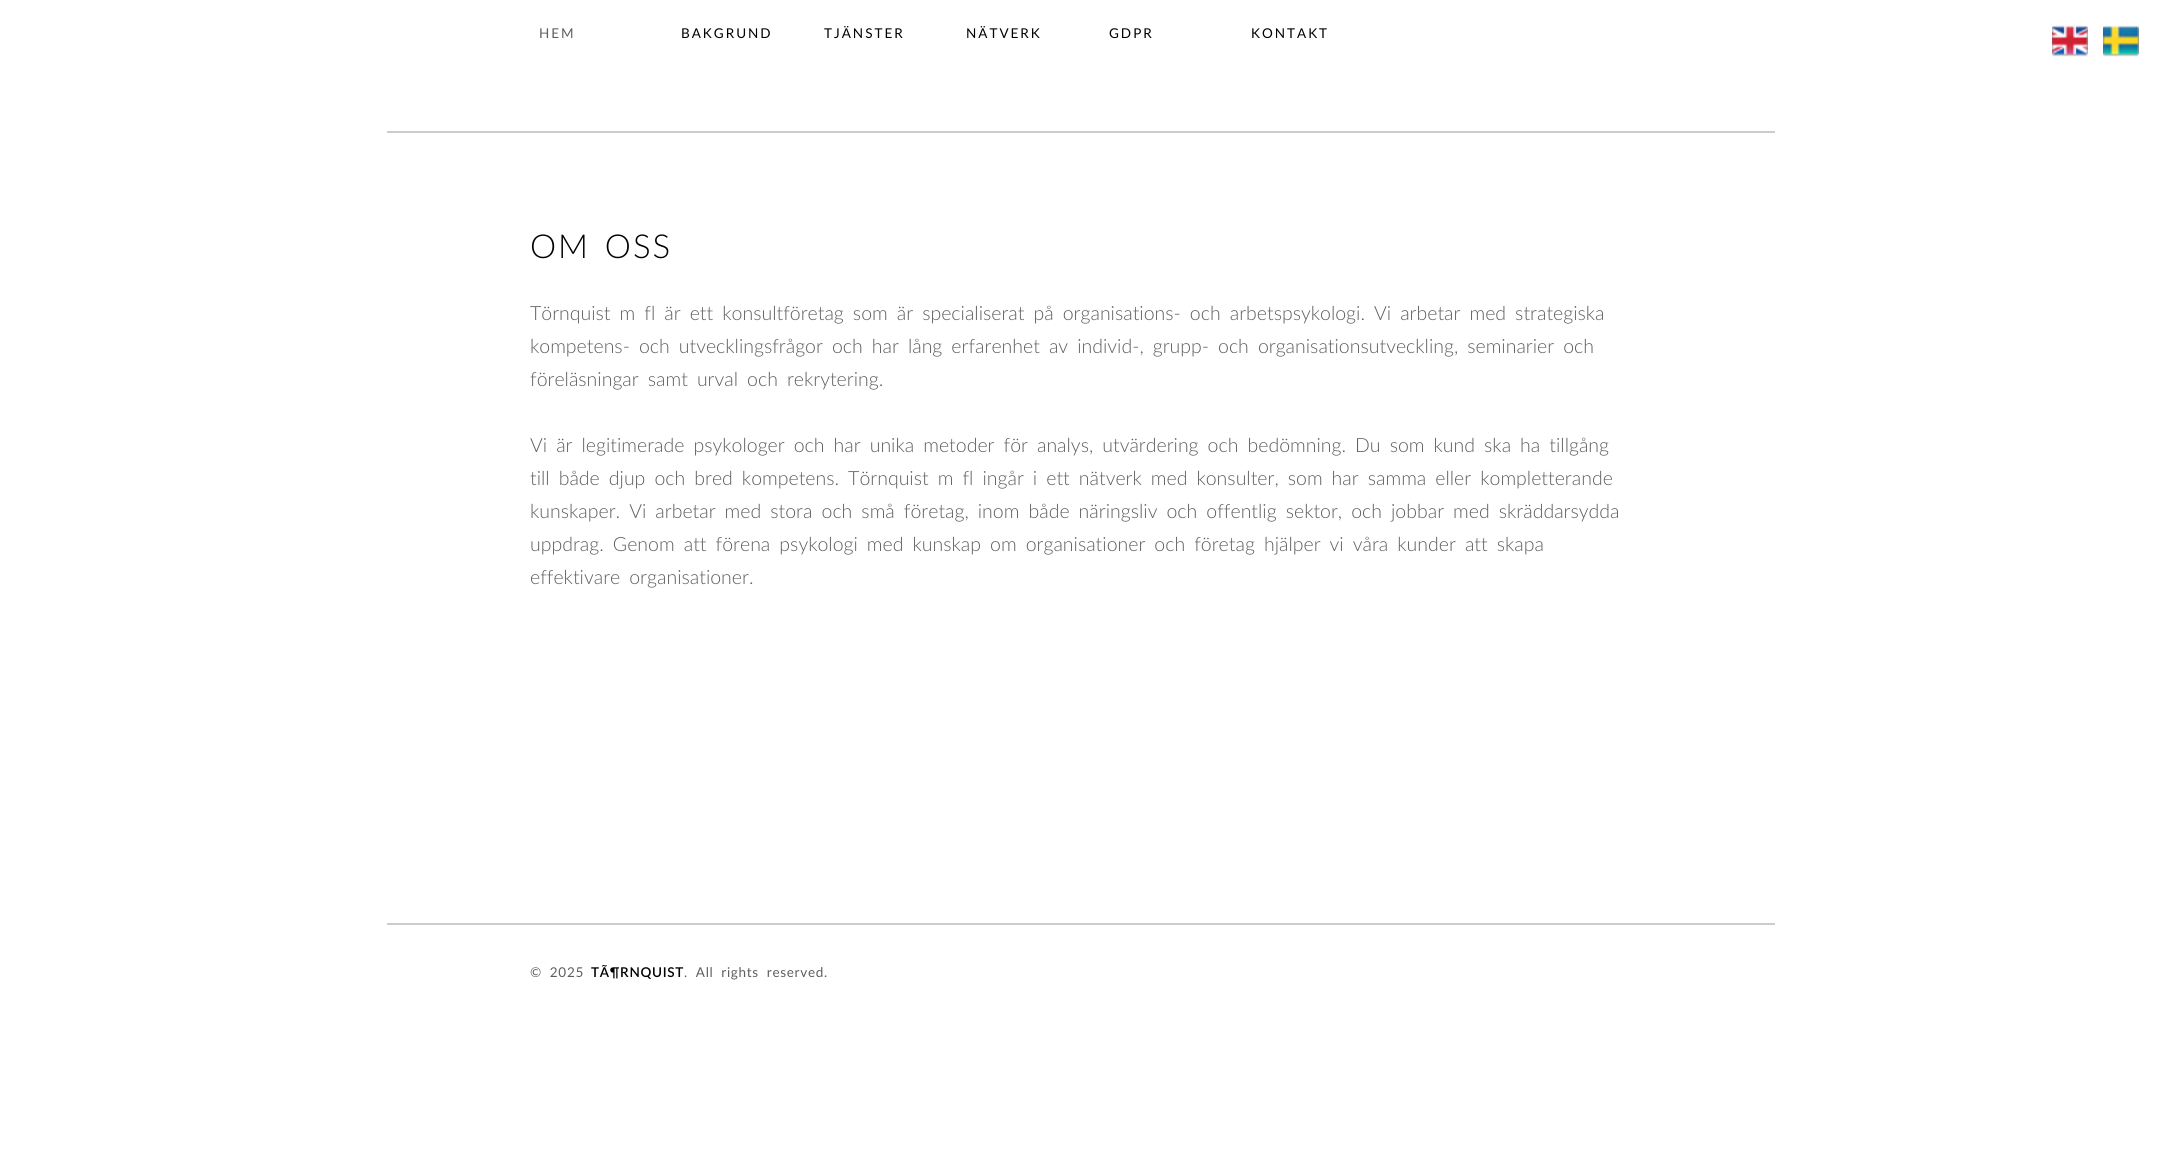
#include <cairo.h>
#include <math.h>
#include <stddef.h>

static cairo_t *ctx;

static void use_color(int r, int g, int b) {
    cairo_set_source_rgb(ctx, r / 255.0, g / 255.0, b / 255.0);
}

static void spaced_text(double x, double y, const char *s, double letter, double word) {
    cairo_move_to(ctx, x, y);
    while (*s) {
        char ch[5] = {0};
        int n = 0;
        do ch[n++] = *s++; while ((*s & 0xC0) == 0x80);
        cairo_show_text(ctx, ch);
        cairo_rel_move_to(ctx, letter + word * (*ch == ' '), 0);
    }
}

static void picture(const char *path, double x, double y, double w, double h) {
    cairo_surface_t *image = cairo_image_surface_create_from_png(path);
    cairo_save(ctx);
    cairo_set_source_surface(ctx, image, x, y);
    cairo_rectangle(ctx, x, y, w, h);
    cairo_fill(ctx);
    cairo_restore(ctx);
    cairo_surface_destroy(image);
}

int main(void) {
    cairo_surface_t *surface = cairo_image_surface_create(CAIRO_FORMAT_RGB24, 2161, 1149);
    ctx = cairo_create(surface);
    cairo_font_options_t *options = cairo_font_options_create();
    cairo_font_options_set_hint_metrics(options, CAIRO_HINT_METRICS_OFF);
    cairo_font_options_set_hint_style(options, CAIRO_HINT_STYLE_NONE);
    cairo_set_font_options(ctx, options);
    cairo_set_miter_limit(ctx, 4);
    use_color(255, 255, 255);
    cairo_paint(ctx);
    use_color(204, 204, 204);
    cairo_rectangle(ctx, 387, 131, 1388, 2);
    cairo_fill(ctx);
    cairo_select_font_face(ctx, "Lato", CAIRO_FONT_SLANT_NORMAL, CAIRO_FONT_WEIGHT_NORMAL);
    cairo_set_font_size(ctx, 13.5);
    use_color(94, 94, 94);
    spaced_text(539, 38, "HEM", 2, 0);
    use_color(0, 0, 0);
    spaced_text(681, 38, "BAKGRUND", 2, 0);
    spaced_text(824, 38, "TJÄNSTER", 2, 0);
    spaced_text(966, 38, "NÄTVERK", 2, 0);
    spaced_text(1109, 38, "GDPR", 2, 0);
    spaced_text(1251, 38, "KONTAKT", 2, 0);
    cairo_select_font_face(ctx, "Lato Light", CAIRO_FONT_SLANT_NORMAL, CAIRO_FONT_WEIGHT_NORMAL);
    cairo_set_font_size(ctx, 33);
    spaced_text(530, 258, "OM OSS", 2, 3.75);
    cairo_set_font_size(ctx, 19.5);
    use_color(94, 94, 94);
    spaced_text(530, 320, "Törnquist m fl är ett konsultföretag som är specialiserat på organisations- och arbetspsykologi. Vi arbetar med strategiska", 0, 3.75);
    spaced_text(530, 353, "kompetens- och utvecklingsfrågor och har lång erfarenhet av individ-, grupp- och organisationsutveckling, seminarier och", 0, 3.75);
    spaced_text(530, 386, "föreläsningar samt urval och rekrytering.", 0, 3.75);
    spaced_text(530, 452, "Vi är legitimerade psykologer och har unika metoder för analys, utvärdering och bedömning. Du som kund ska ha tillgång", 0, 3.75);
    spaced_text(530, 485, "till både djup och bred kompetens. Törnquist m fl ingår i ett nätverk med konsulter, som har samma eller kompletterande", 0, 3.75);
    spaced_text(530, 518, "kunskaper. Vi arbetar med stora och små företag, inom både näringsliv och offentlig sektor, och jobbar med skräddarsydda", 0, 3.75);
    spaced_text(530, 551, "uppdrag. Genom att förena psykologi med kunskap om organisationer och företag hjälper vi våra kunder att skapa", 0, 3.75);
    spaced_text(530, 584, "effektivare organisationer.", 0, 3.75);
    use_color(204, 204, 204);
    cairo_rectangle(ctx, 387, 923, 1388, 2);
    cairo_fill(ctx);
    cairo_select_font_face(ctx, "Lato", CAIRO_FONT_SLANT_NORMAL, CAIRO_FONT_WEIGHT_NORMAL);
    cairo_set_font_size(ctx, 13.5);
    use_color(94, 94, 94);
    spaced_text(530, 977, "© 2025", 0.7, 3.75);
    cairo_select_font_face(ctx, "Lato SemiBold", CAIRO_FONT_SLANT_NORMAL, CAIRO_FONT_WEIGHT_NORMAL);
    use_color(0, 0, 0);
    spaced_text(591, 977, "TÃ¶RNQUIST", 0.7, 0);
    cairo_select_font_face(ctx, "Lato", CAIRO_FONT_SLANT_NORMAL, CAIRO_FONT_WEIGHT_NORMAL);
    use_color(94, 94, 94);
    spaced_text(684, 977, ". All rights reserved.", 0.7, 3.75);
    picture("img1.png", 2052, 25, 36, 32);
    picture("img2.png", 2103, 25, 36, 32);
    cairo_surface_write_to_png(surface, "result.png");
    cairo_font_options_destroy(options);
    cairo_destroy(ctx);
    cairo_surface_destroy(surface);
    return 0;
}
